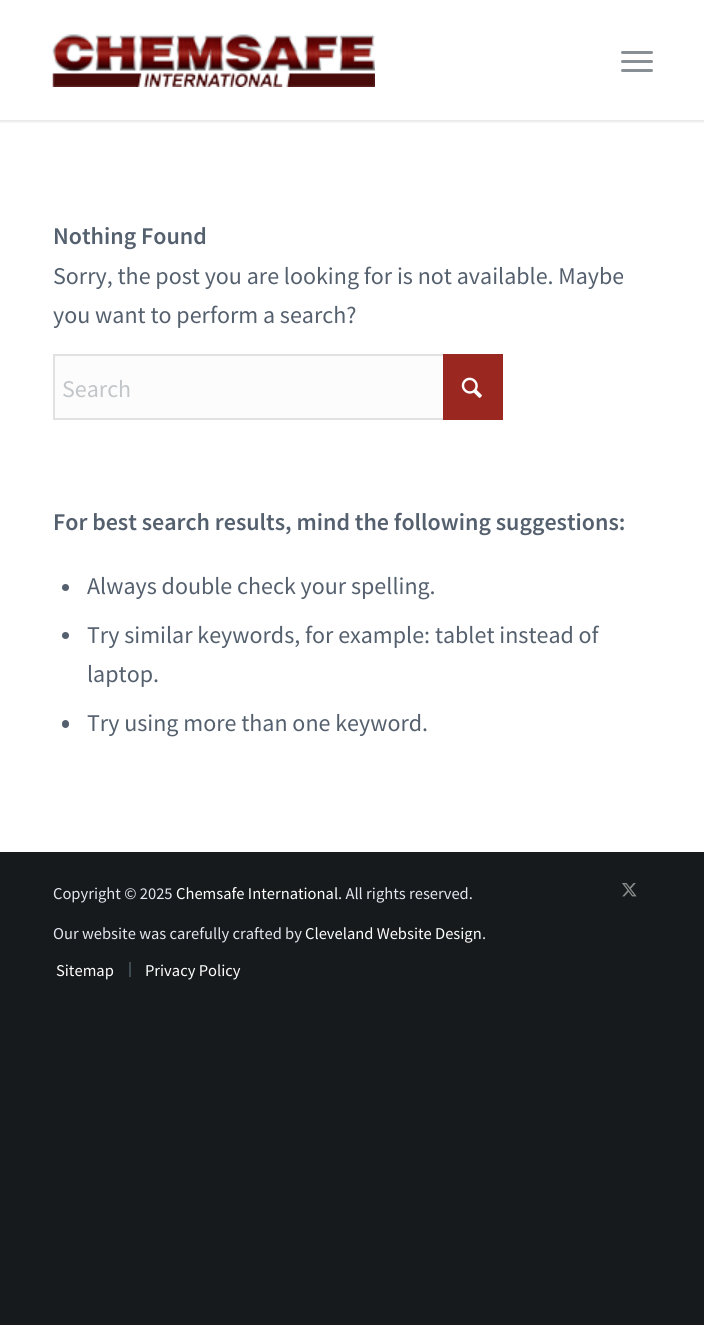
#include <cairo.h>
#include <math.h>
#include <stddef.h>

static cairo_t *ctx;

static void use_color(int r, int g, int b) {
    cairo_set_source_rgb(ctx, r / 255.0, g / 255.0, b / 255.0);
}

static void round_rect(double x, double y, double w, double h, double r) {
    cairo_new_sub_path(ctx);
    cairo_arc(ctx, x + w - r, y + h - r, r, 0, M_PI / 2);
    cairo_arc(ctx, x + r, y + h - r, r, M_PI / 2, M_PI);
    cairo_arc(ctx, x + r, y + r, r, M_PI, 1.5 * M_PI);
    cairo_arc(ctx, x + w - r, y + r, r, 1.5 * M_PI, 2 * M_PI);
    cairo_close_path(ctx);
}

static void shadow(double x, double y, double w, double h, double r, double blur, double alpha) {
    cairo_push_group_with_content(ctx, CAIRO_CONTENT_ALPHA);
    cairo_set_operator(ctx, CAIRO_OPERATOR_SOURCE);
    for (int i = 15; i >= -15 && fmin(w, h) + blur * i / 3 > 0; i -= 2) {
        double e = blur * i / 6;
        cairo_set_source_rgba(ctx, 0, 0, 0, alpha * erfc((i - 1) / 8.5) / 2);
        round_rect(x - e, y - e, w + 2 * e, h + 2 * e, fmax(0, fmin(r + e + blur * .6, fmin(w, h) / 2 + e)));
        cairo_fill(ctx);
    }
    cairo_pattern_t *soft = cairo_pop_group(ctx);
    cairo_mask(ctx, soft);
    cairo_pattern_destroy(soft);
}

static void picture(const char *path, double x, double y, double w, double h) {
    cairo_surface_t *image = cairo_image_surface_create_from_png(path);
    cairo_save(ctx);
    cairo_set_source_surface(ctx, image, x, y);
    cairo_rectangle(ctx, x, y, w, h);
    cairo_fill(ctx);
    cairo_restore(ctx);
    cairo_surface_destroy(image);
}

int main(void) {
    cairo_surface_t *surface = cairo_image_surface_create(CAIRO_FORMAT_RGB24, 704, 1325);
    ctx = cairo_create(surface);
    cairo_font_options_t *options = cairo_font_options_create();
    cairo_font_options_set_hint_metrics(options, CAIRO_HINT_METRICS_OFF);
    cairo_font_options_set_hint_style(options, CAIRO_HINT_STYLE_NONE);
    cairo_set_font_options(ctx, options);
    cairo_set_miter_limit(ctx, 4);
    use_color(22, 26, 28);
    cairo_paint(ctx);
    use_color(255, 255, 255);
    cairo_rectangle(ctx, 0, 0, 704, 852);
    cairo_fill(ctx);
    cairo_save(ctx);
    cairo_rectangle(ctx, 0, 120, 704, 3);
    cairo_clip(ctx);
    use_color(0, 0, 0);
    shadow(-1, -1, 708, 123, 0, 1.5, 0.1);
    cairo_restore(ctx);
    picture("img1.png", 52, 34, 323, 53);
    use_color(136, 144, 149);
    round_rect(621, 60, 32, 3, 1.5);
    cairo_fill(ctx);
    round_rect(621, 51, 32, 3, 1.5);
    cairo_fill(ctx);
    round_rect(621, 69, 32, 3, 1.5);
    cairo_fill(ctx);
    cairo_select_font_face(ctx, "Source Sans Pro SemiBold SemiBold", CAIRO_FONT_SLANT_NORMAL, CAIRO_FONT_WEIGHT_NORMAL);
    cairo_set_font_size(ctx, 24);
    use_color(85, 96, 110);
    cairo_move_to(ctx, 53, 244);
    cairo_show_text(ctx, "Nothing Found");
    cairo_select_font_face(ctx, "Source Sans Pro", CAIRO_FONT_SLANT_NORMAL, CAIRO_FONT_WEIGHT_NORMAL);
    cairo_move_to(ctx, 53, 284);
    cairo_show_text(ctx, "Sorry, the post you are looking for is not available. Maybe");
    cairo_move_to(ctx, 53, 323);
    cairo_show_text(ctx, "you want to perform a search?");
    use_color(252, 252, 252);
    cairo_rectangle(ctx, 55, 356, 388, 62);
    cairo_fill(ctx);
    cairo_rectangle(ctx, 54, 355, 448, 64);
    use_color(225, 225, 225);
    cairo_stroke(ctx);
    use_color(154, 40, 33);
    cairo_rectangle(ctx, 443, 354, 60, 66);
    cairo_fill(ctx);
    use_color(194, 198, 201);
    cairo_move_to(ctx, 62, 397);
    cairo_show_text(ctx, "Search");
    picture("img2.png", 461, 377, 21, 21);
    cairo_select_font_face(ctx, "Source Sans Pro SemiBold SemiBold", CAIRO_FONT_SLANT_NORMAL, CAIRO_FONT_WEIGHT_NORMAL);
    use_color(85, 96, 110);
    cairo_move_to(ctx, 53, 530);
    cairo_show_text(ctx, "For best search results, mind the following suggestions:");
    cairo_new_path(ctx);
    cairo_arc(ctx, 65.5, 587.5, 3.5, 0, 2 * M_PI);
    cairo_fill(ctx);
    cairo_select_font_face(ctx, "Source Sans Pro", CAIRO_FONT_SLANT_NORMAL, CAIRO_FONT_WEIGHT_NORMAL);
    cairo_move_to(ctx, 87, 594);
    cairo_show_text(ctx, "Always double check your spelling.");
    cairo_new_path(ctx);
    cairo_arc(ctx, 65.5, 635.5, 3.5, 0, 2 * M_PI);
    cairo_fill(ctx);
    cairo_move_to(ctx, 87, 643);
    cairo_show_text(ctx, "Try similar keywords, for example: tablet instead of");
    cairo_move_to(ctx, 87, 682);
    cairo_show_text(ctx, "laptop.");
    round_rect(62, 720, 7, 8, 3.5);
    cairo_fill(ctx);
    cairo_move_to(ctx, 87, 731);
    cairo_show_text(ctx, "Try using more than one keyword.");
    cairo_set_font_size(ctx, 16.5);
    use_color(228, 230, 240);
    cairo_move_to(ctx, 53, 899);
    cairo_show_text(ctx, "Copyright © 2025");
    use_color(255, 255, 255);
    cairo_move_to(ctx, 176, 899);
    cairo_show_text(ctx, "Chemsafe International");
    use_color(228, 230, 240);
    cairo_move_to(ctx, 338, 899);
    cairo_show_text(ctx, ". All rights reserved.");
    cairo_move_to(ctx, 53, 939);
    cairo_show_text(ctx, "Our website was carefully crafted by");
    use_color(255, 255, 255);
    cairo_move_to(ctx, 305, 939);
    cairo_show_text(ctx, "Cleveland Website Design");
    use_color(228, 230, 240);
    cairo_move_to(ctx, 482, 939);
    cairo_show_text(ctx, ".");
    picture("img3.png", 622, 883, 15, 14);
    use_color(255, 255, 255);
    cairo_move_to(ctx, 56, 976);
    cairo_show_text(ctx, "Sitemap");
    use_color(62, 74, 82);
    cairo_rectangle(ctx, 129, 962, 2, 15);
    cairo_fill(ctx);
    use_color(255, 255, 255);
    cairo_move_to(ctx, 145, 976);
    cairo_show_text(ctx, "Privacy Policy");
    cairo_surface_write_to_png(surface, "result.png");
    cairo_font_options_destroy(options);
    cairo_destroy(ctx);
    cairo_surface_destroy(surface);
    return 0;
}
